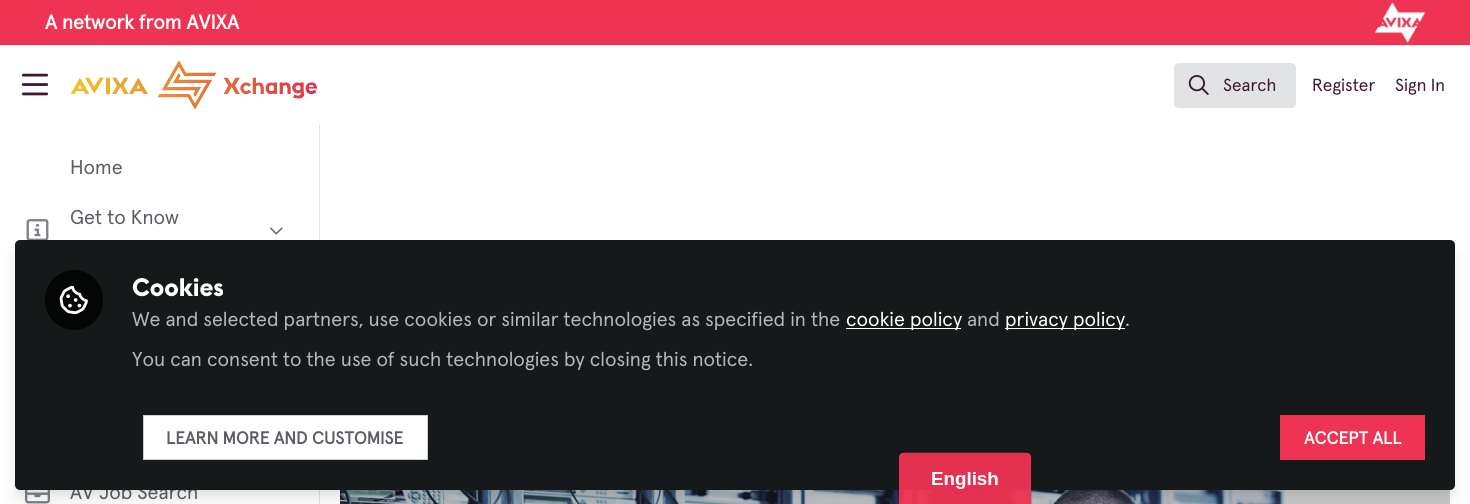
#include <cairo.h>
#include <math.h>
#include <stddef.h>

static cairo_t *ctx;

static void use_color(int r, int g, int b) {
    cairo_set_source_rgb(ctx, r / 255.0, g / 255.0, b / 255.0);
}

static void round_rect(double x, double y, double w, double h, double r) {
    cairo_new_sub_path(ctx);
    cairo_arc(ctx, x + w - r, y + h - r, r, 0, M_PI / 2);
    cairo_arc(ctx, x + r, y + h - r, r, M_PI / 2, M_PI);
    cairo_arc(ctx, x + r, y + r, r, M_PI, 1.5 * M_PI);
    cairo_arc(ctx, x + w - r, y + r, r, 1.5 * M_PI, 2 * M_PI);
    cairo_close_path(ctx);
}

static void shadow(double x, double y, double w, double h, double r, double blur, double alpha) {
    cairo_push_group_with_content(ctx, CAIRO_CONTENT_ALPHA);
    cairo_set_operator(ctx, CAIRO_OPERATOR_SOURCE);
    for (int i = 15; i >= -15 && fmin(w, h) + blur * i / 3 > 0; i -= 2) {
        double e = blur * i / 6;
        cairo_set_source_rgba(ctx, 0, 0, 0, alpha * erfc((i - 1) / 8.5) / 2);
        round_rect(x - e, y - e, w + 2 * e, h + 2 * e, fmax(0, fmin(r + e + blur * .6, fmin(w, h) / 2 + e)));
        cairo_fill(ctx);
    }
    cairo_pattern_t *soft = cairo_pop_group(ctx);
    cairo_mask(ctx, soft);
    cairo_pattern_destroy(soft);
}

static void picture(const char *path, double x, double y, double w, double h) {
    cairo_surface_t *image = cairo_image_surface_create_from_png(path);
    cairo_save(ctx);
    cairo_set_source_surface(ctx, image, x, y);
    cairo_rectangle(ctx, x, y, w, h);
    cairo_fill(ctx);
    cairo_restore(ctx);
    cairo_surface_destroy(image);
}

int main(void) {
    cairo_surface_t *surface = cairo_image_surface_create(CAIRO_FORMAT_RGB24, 1470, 504);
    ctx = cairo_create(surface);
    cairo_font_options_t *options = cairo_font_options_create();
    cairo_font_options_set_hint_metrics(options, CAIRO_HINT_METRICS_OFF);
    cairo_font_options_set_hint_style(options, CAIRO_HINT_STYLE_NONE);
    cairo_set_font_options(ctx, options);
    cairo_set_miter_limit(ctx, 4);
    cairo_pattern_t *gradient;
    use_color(255, 255, 255);
    cairo_paint(ctx);
    use_color(238, 51, 83);
    cairo_rectangle(ctx, 0, 0, 1470, 45);
    cairo_fill(ctx);
    cairo_select_font_face(ctx, "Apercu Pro", CAIRO_FONT_SLANT_NORMAL, CAIRO_FONT_WEIGHT_BOLD);
    cairo_set_font_size(ctx, 20);
    use_color(255, 255, 255);
    cairo_move_to(ctx, 45, 29);
    cairo_show_text(ctx, "A network from AVIXA");
    picture("img1.png", 1375, 2, 50, 41);
    picture("img2.png", 21, 73, 28, 23);
    picture("img3.png", 70, 60, 247, 50);
    use_color(226, 227, 228);
    round_rect(1174, 63, 122, 45, 5);
    cairo_fill(ctx);
    picture("img4.png", 1188, 75, 21, 20);
    cairo_select_font_face(ctx, "Apercu Pro", CAIRO_FONT_SLANT_NORMAL, CAIRO_FONT_WEIGHT_NORMAL);
    cairo_set_font_size(ctx, 17.5);
    use_color(63, 24, 51);
    cairo_move_to(ctx, 1223, 91);
    cairo_show_text(ctx, "Search");
    cairo_move_to(ctx, 1312, 91);
    cairo_show_text(ctx, "Register");
    cairo_move_to(ctx, 1395, 91);
    cairo_show_text(ctx, "Sign In");
    use_color(226, 227, 228);
    cairo_rectangle(ctx, 319, 125, 1, 379);
    cairo_fill(ctx);
    cairo_set_font_size(ctx, 20);
    use_color(90, 93, 99);
    cairo_move_to(ctx, 70, 174);
    cairo_show_text(ctx, "Home");
    cairo_move_to(ctx, 70, 224);
    cairo_show_text(ctx, "Get to Know");
    picture("img5.png", 26, 219, 23, 21);
    picture("img6.png", 270, 227, 13, 8);
    picture("img7.png", 25, 490, 25, 14);
    cairo_move_to(ctx, 70, 499);
    cairo_show_text(ctx, "AV Job Search");
    picture("img9.png", 340, 490, 1110, 14);
    gradient = cairo_pattern_create_linear(895, 316, 895, 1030);
    cairo_pattern_add_color_stop_rgba(gradient, 0, 0, 0, 0, 0);
    cairo_pattern_add_color_stop_rgba(gradient, 1, 0, 0, 0, 0.8);
    cairo_set_source(ctx, gradient);
    cairo_pattern_destroy(gradient);
    cairo_rectangle(ctx, 340, 490, 1110, 14);
    cairo_fill(ctx);
    use_color(0, 0, 0);
    shadow(18, 248, 1435, 245, 2.5, 4, 0.05);
    shadow(19, 256, 1432, 243, 1, 9.5, 0.1);
    use_color(22, 25, 25);
    round_rect(15, 240, 1440, 250, 5);
    cairo_fill(ctx);
    use_color(4, 5, 5);
    round_rect(45, 270, 58, 60, 29);
    cairo_fill(ctx);
    picture("img8.png", 59, 285, 29, 30);
    cairo_select_font_face(ctx, "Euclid", CAIRO_FONT_SLANT_NORMAL, CAIRO_FONT_WEIGHT_BOLD);
    cairo_set_font_size(ctx, 25);
    use_color(255, 255, 255);
    cairo_move_to(ctx, 132, 296);
    cairo_show_text(ctx, "Cookies");
    cairo_select_font_face(ctx, "Apercu Pro", CAIRO_FONT_SLANT_NORMAL, CAIRO_FONT_WEIGHT_NORMAL);
    cairo_set_font_size(ctx, 20);
    use_color(180, 183, 187);
    cairo_move_to(ctx, 132, 326);
    cairo_show_text(ctx, "We and selected partners, use cookies or similar technologies as specified in the");
    use_color(255, 255, 255);
    cairo_rectangle(ctx, 846, 328, 115, 1);
    cairo_fill(ctx);
    cairo_move_to(ctx, 846, 326);
    cairo_show_text(ctx, "cookie policy");
    use_color(180, 183, 187);
    cairo_move_to(ctx, 967, 326);
    cairo_show_text(ctx, "and");
    use_color(255, 255, 255);
    cairo_rectangle(ctx, 1005, 328, 120, 1);
    cairo_fill(ctx);
    cairo_move_to(ctx, 1005, 326);
    cairo_show_text(ctx, "privacy policy");
    use_color(180, 183, 187);
    cairo_move_to(ctx, 1125, 326);
    cairo_show_text(ctx, ".");
    cairo_move_to(ctx, 132, 366);
    cairo_show_text(ctx, "You can consent to the use of such technologies by closing this notice.");
    use_color(255, 255, 255);
    cairo_rectangle(ctx, 143.5, 415.5, 284, 44);
    cairo_fill_preserve(ctx);
    use_color(199, 208, 210);
    cairo_set_line_width(ctx, 1);
    cairo_stroke(ctx);
    cairo_select_font_face(ctx, "Apercu Pro", CAIRO_FONT_SLANT_NORMAL, CAIRO_FONT_WEIGHT_BOLD);
    cairo_set_font_size(ctx, 17.5);
    use_color(90, 93, 99);
    cairo_move_to(ctx, 166, 444);
    cairo_show_text(ctx, "LEARN MORE AND CUSTOMISE");
    use_color(238, 51, 83);
    cairo_rectangle(ctx, 1280, 415, 145, 45);
    cairo_fill(ctx);
    use_color(255, 255, 255);
    cairo_move_to(ctx, 1304, 444);
    cairo_show_text(ctx, "ACCEPT ALL");
    picture("img10.png", 898, 451, 135, 53);
    cairo_surface_write_to_png(surface, "result.png");
    cairo_font_options_destroy(options);
    cairo_destroy(ctx);
    cairo_surface_destroy(surface);
    return 0;
}
